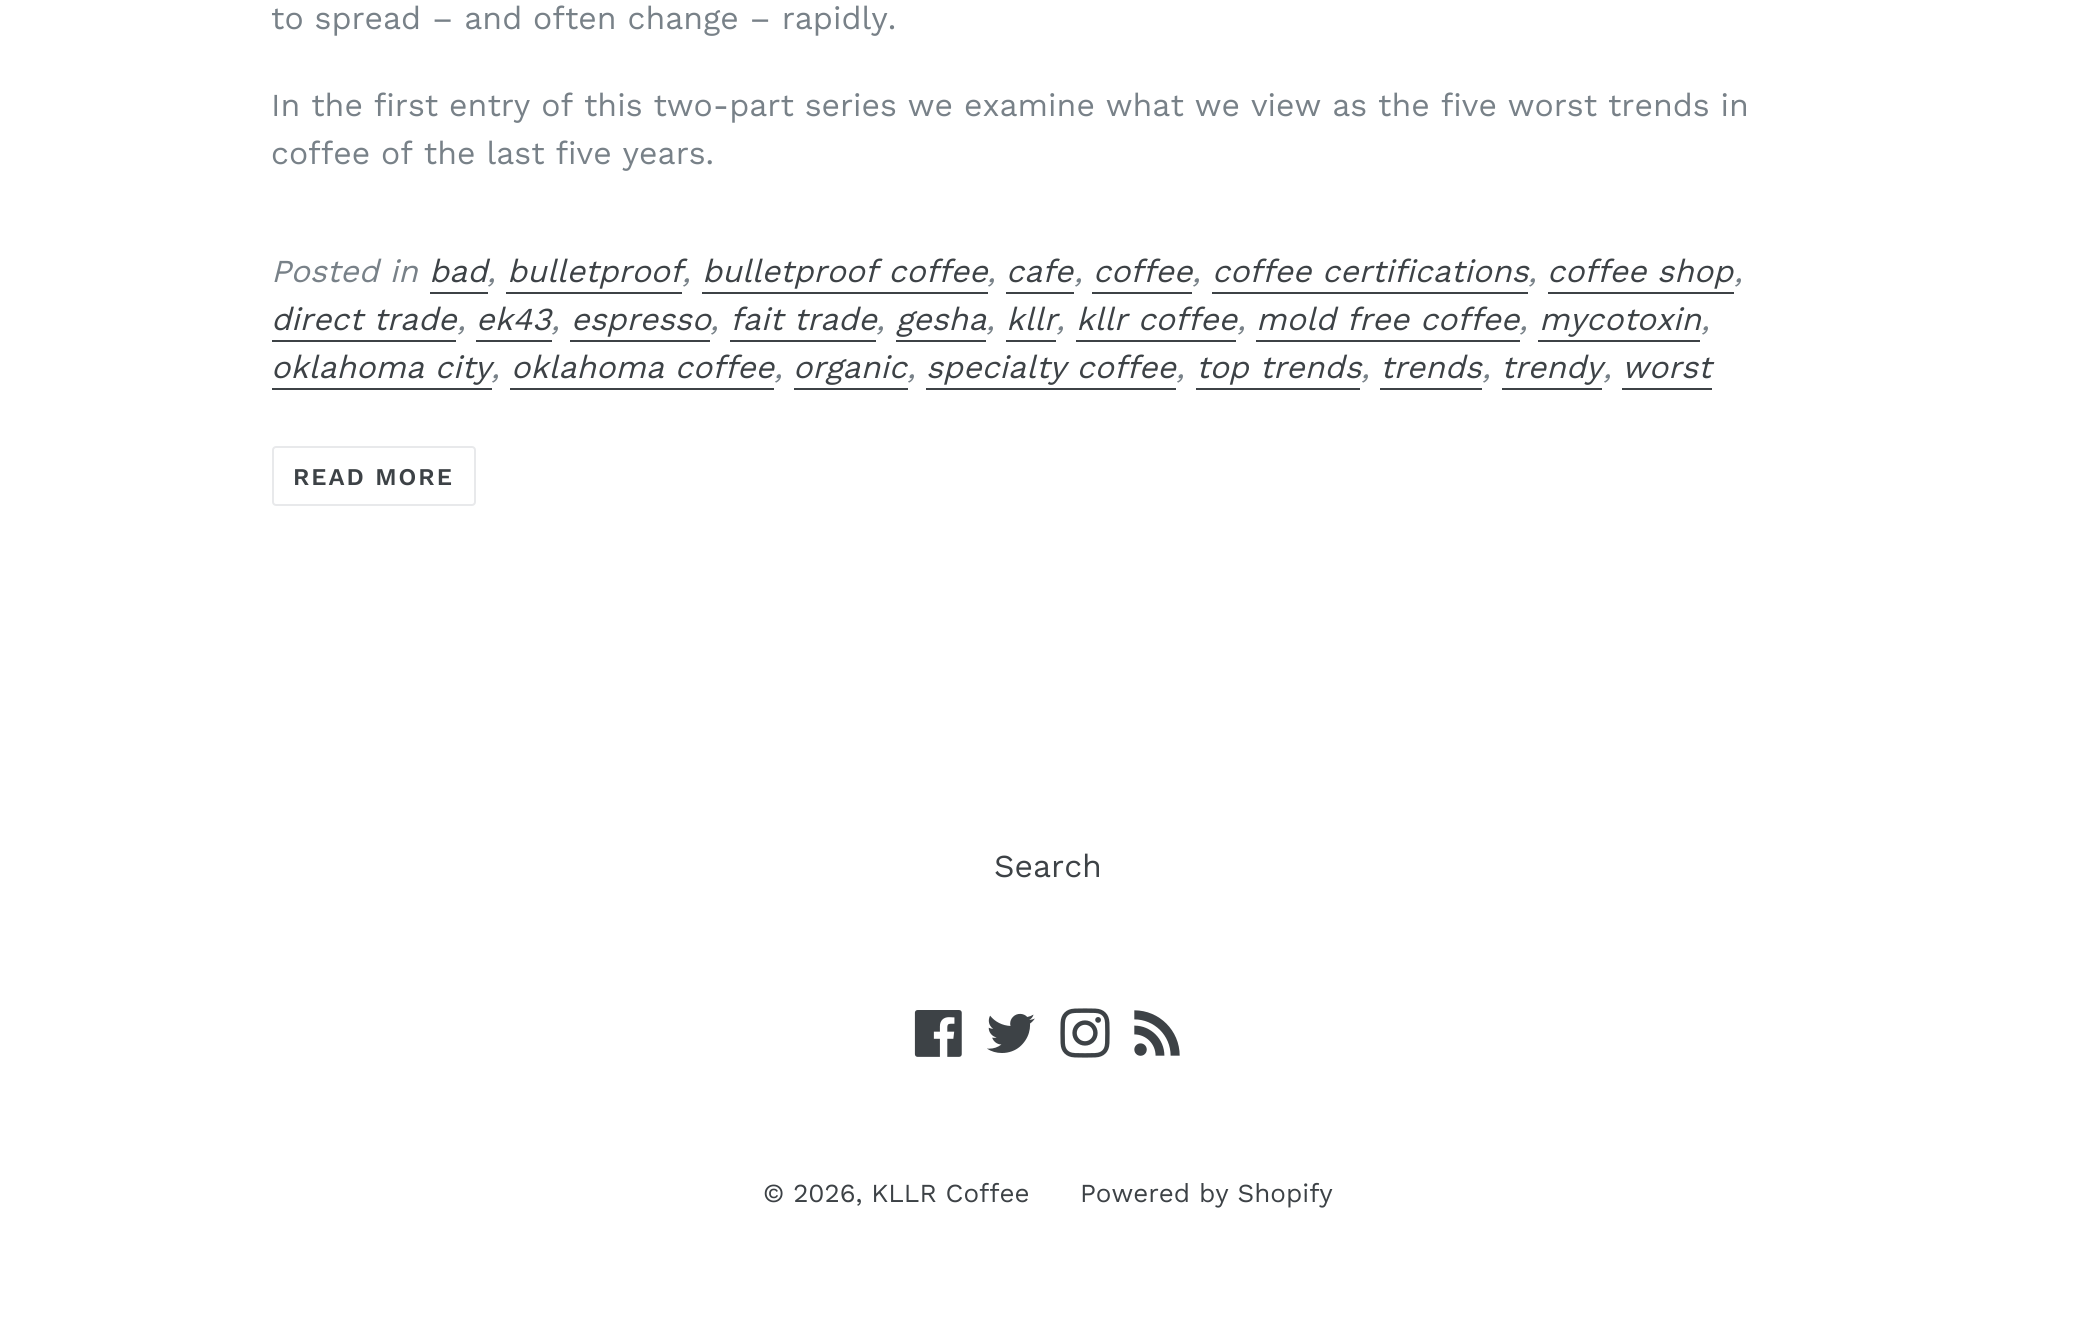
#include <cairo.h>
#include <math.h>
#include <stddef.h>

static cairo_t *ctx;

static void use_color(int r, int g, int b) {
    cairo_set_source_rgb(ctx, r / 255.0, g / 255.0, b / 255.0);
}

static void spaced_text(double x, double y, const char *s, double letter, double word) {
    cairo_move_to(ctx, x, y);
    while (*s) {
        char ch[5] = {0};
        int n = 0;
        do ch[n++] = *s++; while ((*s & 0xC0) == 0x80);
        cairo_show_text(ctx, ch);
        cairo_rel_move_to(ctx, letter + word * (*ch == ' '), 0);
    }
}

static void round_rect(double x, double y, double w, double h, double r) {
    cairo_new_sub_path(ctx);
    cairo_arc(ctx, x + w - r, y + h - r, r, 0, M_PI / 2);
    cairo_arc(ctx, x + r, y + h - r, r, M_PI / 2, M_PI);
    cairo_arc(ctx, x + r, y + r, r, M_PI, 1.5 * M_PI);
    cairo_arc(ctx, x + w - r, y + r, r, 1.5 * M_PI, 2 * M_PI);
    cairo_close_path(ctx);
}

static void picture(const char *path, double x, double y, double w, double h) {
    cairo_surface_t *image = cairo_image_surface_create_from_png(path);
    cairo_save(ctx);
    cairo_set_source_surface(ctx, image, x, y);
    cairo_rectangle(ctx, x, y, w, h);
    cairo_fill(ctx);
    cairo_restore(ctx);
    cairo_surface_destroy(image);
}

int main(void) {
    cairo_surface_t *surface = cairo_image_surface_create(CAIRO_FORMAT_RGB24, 2095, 1326);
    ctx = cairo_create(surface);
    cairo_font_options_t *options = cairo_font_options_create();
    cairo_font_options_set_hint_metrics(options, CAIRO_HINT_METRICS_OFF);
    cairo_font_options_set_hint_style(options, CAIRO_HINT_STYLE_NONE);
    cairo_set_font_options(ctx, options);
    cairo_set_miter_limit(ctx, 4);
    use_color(255, 255, 255);
    cairo_paint(ctx);
    cairo_select_font_face(ctx, "Work Sans", CAIRO_FONT_SLANT_NORMAL, CAIRO_FONT_WEIGHT_NORMAL);
    cairo_set_font_size(ctx, 32);
    use_color(120, 129, 136);
    cairo_move_to(ctx, 271, 29);
    cairo_show_text(ctx, "to spread – and often change – rapidly.");
    cairo_move_to(ctx, 271, 116);
    cairo_show_text(ctx, "In the first entry of this two-part series we examine what we view as the five worst trends in");
    cairo_move_to(ctx, 271, 164);
    cairo_show_text(ctx, "coffee of the last five years.");
    cairo_select_font_face(ctx, "Work Sans", CAIRO_FONT_SLANT_ITALIC, CAIRO_FONT_WEIGHT_NORMAL);
    cairo_move_to(ctx, 271, 282);
    cairo_show_text(ctx, "Posted in");
    use_color(61, 66, 70);
    cairo_move_to(ctx, 429, 282);
    cairo_show_text(ctx, "bad");
    cairo_rectangle(ctx, 430, 292, 58, 2);
    cairo_fill(ctx);
    use_color(120, 129, 136);
    cairo_move_to(ctx, 487, 282);
    cairo_show_text(ctx, ",");
    use_color(61, 66, 70);
    cairo_move_to(ctx, 507, 282);
    cairo_show_text(ctx, "bulletproof");
    cairo_rectangle(ctx, 506, 292, 176, 2);
    cairo_fill(ctx);
    cairo_move_to(ctx, 702, 282);
    cairo_show_text(ctx, "bulletproof coffee");
    cairo_rectangle(ctx, 702, 292, 286, 2);
    cairo_fill(ctx);
    cairo_move_to(ctx, 1006, 282);
    cairo_show_text(ctx, "cafe");
    cairo_rectangle(ctx, 1006, 292, 68, 2);
    cairo_fill(ctx);
    cairo_move_to(ctx, 1093, 282);
    cairo_show_text(ctx, "coffee");
    cairo_rectangle(ctx, 1092, 292, 100, 2);
    cairo_fill(ctx);
    cairo_move_to(ctx, 1212, 282);
    cairo_show_text(ctx, "coffee certifications");
    cairo_rectangle(ctx, 1212, 292, 316, 2);
    cairo_fill(ctx);
    cairo_move_to(ctx, 1547, 282);
    cairo_show_text(ctx, "coffee shop");
    cairo_rectangle(ctx, 1548, 292, 186, 2);
    cairo_fill(ctx);
    use_color(120, 129, 136);
    cairo_move_to(ctx, 682, 282);
    cairo_show_text(ctx, ",");
    cairo_move_to(ctx, 987, 282);
    cairo_show_text(ctx, ",");
    cairo_move_to(ctx, 1074, 282);
    cairo_show_text(ctx, ",");
    cairo_move_to(ctx, 1192, 282);
    cairo_show_text(ctx, ",");
    cairo_move_to(ctx, 1528, 282);
    cairo_show_text(ctx, ",");
    cairo_move_to(ctx, 1734, 282);
    cairo_show_text(ctx, ",");
    use_color(61, 66, 70);
    cairo_move_to(ctx, 271, 330);
    cairo_show_text(ctx, "direct trade");
    cairo_rectangle(ctx, 272, 340, 184, 2);
    cairo_fill(ctx);
    use_color(120, 129, 136);
    cairo_move_to(ctx, 457, 330);
    cairo_show_text(ctx, ",");
    use_color(61, 66, 70);
    cairo_move_to(ctx, 476, 330);
    cairo_show_text(ctx, "ek43");
    cairo_rectangle(ctx, 476, 340, 76, 2);
    cairo_fill(ctx);
    use_color(120, 129, 136);
    cairo_move_to(ctx, 551, 330);
    cairo_show_text(ctx, ",");
    use_color(61, 66, 70);
    cairo_move_to(ctx, 571, 330);
    cairo_show_text(ctx, "espresso");
    cairo_rectangle(ctx, 570, 340, 140, 2);
    cairo_fill(ctx);
    use_color(120, 129, 136);
    cairo_move_to(ctx, 710, 330);
    cairo_show_text(ctx, ",");
    use_color(61, 66, 70);
    cairo_move_to(ctx, 730, 330);
    cairo_show_text(ctx, "fait trade");
    cairo_rectangle(ctx, 730, 340, 146, 2);
    cairo_fill(ctx);
    use_color(120, 129, 136);
    cairo_move_to(ctx, 876, 330);
    cairo_show_text(ctx, ",");
    use_color(61, 66, 70);
    cairo_move_to(ctx, 896, 330);
    cairo_show_text(ctx, "gesha");
    cairo_rectangle(ctx, 896, 340, 90, 2);
    cairo_fill(ctx);
    use_color(120, 129, 136);
    cairo_move_to(ctx, 986, 330);
    cairo_show_text(ctx, ",");
    use_color(61, 66, 70);
    cairo_move_to(ctx, 1006, 330);
    cairo_show_text(ctx, "kllr");
    cairo_rectangle(ctx, 1006, 340, 50, 2);
    cairo_fill(ctx);
    use_color(120, 129, 136);
    cairo_move_to(ctx, 1056, 330);
    cairo_show_text(ctx, ",");
    use_color(61, 66, 70);
    cairo_move_to(ctx, 1076, 330);
    cairo_show_text(ctx, "kllr coffee");
    cairo_rectangle(ctx, 1076, 340, 160, 2);
    cairo_fill(ctx);
    use_color(120, 129, 136);
    cairo_move_to(ctx, 1237, 330);
    cairo_show_text(ctx, ",");
    use_color(61, 66, 70);
    cairo_move_to(ctx, 1256, 330);
    cairo_show_text(ctx, "mold free coffee");
    cairo_rectangle(ctx, 1256, 340, 264, 2);
    cairo_fill(ctx);
    use_color(120, 129, 136);
    cairo_move_to(ctx, 1519, 330);
    cairo_show_text(ctx, ",");
    use_color(61, 66, 70);
    cairo_move_to(ctx, 1539, 330);
    cairo_show_text(ctx, "mycotoxin");
    cairo_rectangle(ctx, 1538, 340, 162, 2);
    cairo_fill(ctx);
    use_color(120, 129, 136);
    cairo_move_to(ctx, 1701, 330);
    cairo_show_text(ctx, ",");
    use_color(61, 66, 70);
    cairo_move_to(ctx, 271, 378);
    cairo_show_text(ctx, "oklahoma city");
    cairo_rectangle(ctx, 272, 388, 220, 2);
    cairo_fill(ctx);
    cairo_move_to(ctx, 511, 378);
    cairo_show_text(ctx, "oklahoma coffee");
    cairo_rectangle(ctx, 510, 388, 264, 2);
    cairo_fill(ctx);
    cairo_move_to(ctx, 793, 378);
    cairo_show_text(ctx, "organic");
    cairo_rectangle(ctx, 794, 388, 114, 2);
    cairo_fill(ctx);
    cairo_move_to(ctx, 926, 378);
    cairo_show_text(ctx, "specialty coffee");
    cairo_rectangle(ctx, 926, 388, 250, 2);
    cairo_fill(ctx);
    cairo_move_to(ctx, 1196, 378);
    cairo_show_text(ctx, "top trends");
    cairo_rectangle(ctx, 1196, 388, 164, 2);
    cairo_fill(ctx);
    cairo_move_to(ctx, 1380, 378);
    cairo_show_text(ctx, "trends");
    cairo_rectangle(ctx, 1380, 388, 102, 2);
    cairo_fill(ctx);
    cairo_move_to(ctx, 1501, 378);
    cairo_show_text(ctx, "trendy");
    cairo_rectangle(ctx, 1502, 388, 100, 2);
    cairo_fill(ctx);
    cairo_move_to(ctx, 1622, 378);
    cairo_show_text(ctx, "worst");
    cairo_rectangle(ctx, 1622, 388, 90, 2);
    cairo_fill(ctx);
    use_color(120, 129, 136);
    cairo_move_to(ctx, 491, 378);
    cairo_show_text(ctx, ",");
    cairo_move_to(ctx, 774, 378);
    cairo_show_text(ctx, ",");
    cairo_move_to(ctx, 907, 378);
    cairo_show_text(ctx, ",");
    cairo_move_to(ctx, 1176, 378);
    cairo_show_text(ctx, ",");
    cairo_move_to(ctx, 1361, 378);
    cairo_show_text(ctx, ",");
    cairo_move_to(ctx, 1482, 378);
    cairo_show_text(ctx, ",");
    cairo_move_to(ctx, 1603, 378);
    cairo_show_text(ctx, ",");
    round_rect(273, 447, 202, 58, 3);
    use_color(232, 233, 235);
    cairo_stroke(ctx);
    cairo_select_font_face(ctx, "Work Sans SemiBold", CAIRO_FONT_SLANT_NORMAL, CAIRO_FONT_WEIGHT_NORMAL);
    cairo_set_font_size(ctx, 24);
    use_color(61, 66, 70);
    spaced_text(293, 485, "READ MORE", 2, 0);
    cairo_select_font_face(ctx, "Work Sans", CAIRO_FONT_SLANT_NORMAL, CAIRO_FONT_WEIGHT_NORMAL);
    cairo_set_font_size(ctx, 32);
    cairo_move_to(ctx, 994, 877);
    cairo_show_text(ctx, "Search");
    picture("img1.png", 914, 1010, 48, 47);
    picture("img2.png", 987, 1013, 48, 40);
    picture("img3.png", 1060, 1008, 50, 50);
    picture("img4.png", 1134, 1010, 46, 46);
    cairo_set_font_size(ctx, 26);
    cairo_move_to(ctx, 763, 1202);
    cairo_show_text(ctx, "© 2026, KLLR Coffee");
    cairo_move_to(ctx, 1080, 1202);
    cairo_show_text(ctx, "Powered by Shopify");
    cairo_surface_write_to_png(surface, "result.png");
    cairo_font_options_destroy(options);
    cairo_destroy(ctx);
    cairo_surface_destroy(surface);
    return 0;
}
